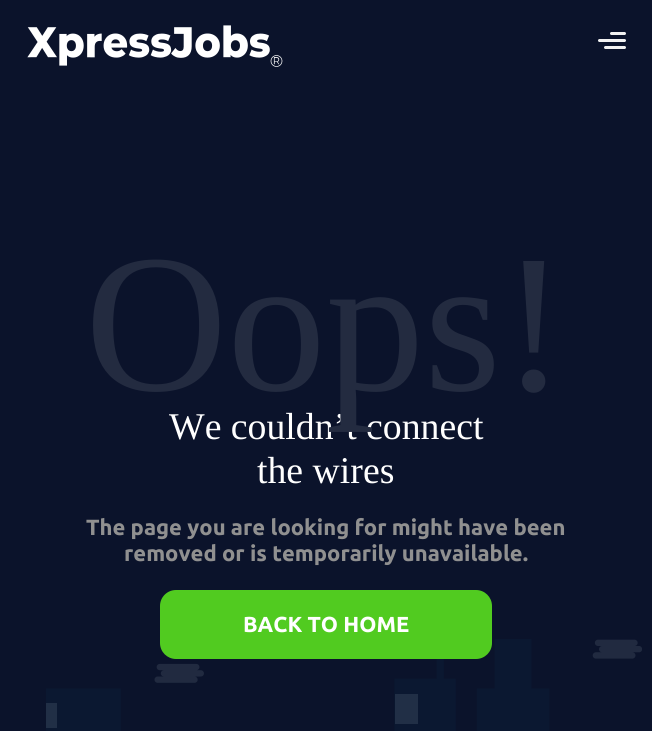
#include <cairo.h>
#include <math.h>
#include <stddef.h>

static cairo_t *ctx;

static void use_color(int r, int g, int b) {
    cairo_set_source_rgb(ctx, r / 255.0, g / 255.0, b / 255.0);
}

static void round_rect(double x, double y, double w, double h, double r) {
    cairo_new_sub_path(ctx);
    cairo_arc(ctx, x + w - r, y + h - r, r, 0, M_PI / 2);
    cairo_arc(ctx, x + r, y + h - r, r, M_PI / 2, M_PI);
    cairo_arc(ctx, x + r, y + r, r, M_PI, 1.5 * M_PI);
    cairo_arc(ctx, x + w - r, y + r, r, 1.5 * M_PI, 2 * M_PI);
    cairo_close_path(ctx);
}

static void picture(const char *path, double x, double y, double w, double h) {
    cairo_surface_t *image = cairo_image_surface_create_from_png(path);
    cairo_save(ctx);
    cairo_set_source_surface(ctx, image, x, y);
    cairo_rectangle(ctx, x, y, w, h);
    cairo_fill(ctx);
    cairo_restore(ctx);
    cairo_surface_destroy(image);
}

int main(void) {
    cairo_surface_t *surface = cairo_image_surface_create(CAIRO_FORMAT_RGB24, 652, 731);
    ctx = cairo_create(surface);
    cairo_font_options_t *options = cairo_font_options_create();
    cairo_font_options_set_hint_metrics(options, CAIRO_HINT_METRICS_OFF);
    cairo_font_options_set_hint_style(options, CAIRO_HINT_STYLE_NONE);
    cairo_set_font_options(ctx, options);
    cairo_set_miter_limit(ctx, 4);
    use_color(11, 19, 43);
    cairo_paint(ctx);
    picture("img1.png", 27, 25, 256, 42);
    cairo_new_path(ctx);
    cairo_move_to(ctx, 624.5, 33.5);
    cairo_line_to(ctx, 611.5, 33.5);
    cairo_move_to(ctx, 624.5, 40.5);
    cairo_line_to(ctx, 599.5, 40.5);
    cairo_move_to(ctx, 624.5, 47.5);
    cairo_line_to(ctx, 605.5, 47.5);
    use_color(242, 242, 242);
    cairo_set_line_width(ctx, 3);
    cairo_set_line_cap(ctx, CAIRO_LINE_CAP_ROUND);
    cairo_stroke(ctx);
    cairo_select_font_face(ctx, "Liberation Serif", CAIRO_FONT_SLANT_NORMAL, CAIRO_FONT_WEIGHT_NORMAL);
    cairo_set_font_size(ctx, 37.75);
    use_color(255, 255, 255);
    cairo_move_to(ctx, 169, 439);
    cairo_show_text(ctx, "We couldn’t connect");
    cairo_set_font_size(ctx, 197);
    use_color(35, 43, 64);
    cairo_move_to(ctx, 85, 390);
    cairo_show_text(ctx, "Oops!");
    cairo_set_font_size(ctx, 37.75);
    use_color(255, 255, 255);
    cairo_move_to(ctx, 257, 483);
    cairo_show_text(ctx, "the wires");
    cairo_select_font_face(ctx, "Ubuntu", CAIRO_FONT_SLANT_NORMAL, CAIRO_FONT_WEIGHT_BOLD);
    cairo_set_font_size(ctx, 22);
    use_color(144, 144, 144);
    cairo_move_to(ctx, 86, 535);
    cairo_show_text(ctx, "The page you are looking for might have been");
    cairo_move_to(ctx, 124, 561);
    cairo_show_text(ctx, "removed or is temporarily unavailable.");
    picture("img2.png", 46, 639, 596, 92);
    use_color(81, 203, 32);
    round_rect(160, 590, 332, 69, 16);
    cairo_fill(ctx);
    cairo_set_font_size(ctx, 21.75);
    use_color(255, 255, 255);
    cairo_move_to(ctx, 243, 632);
    cairo_show_text(ctx, "BACK TO HOME");
    cairo_surface_write_to_png(surface, "result.png");
    cairo_font_options_destroy(options);
    cairo_destroy(ctx);
    cairo_surface_destroy(surface);
    return 0;
}
